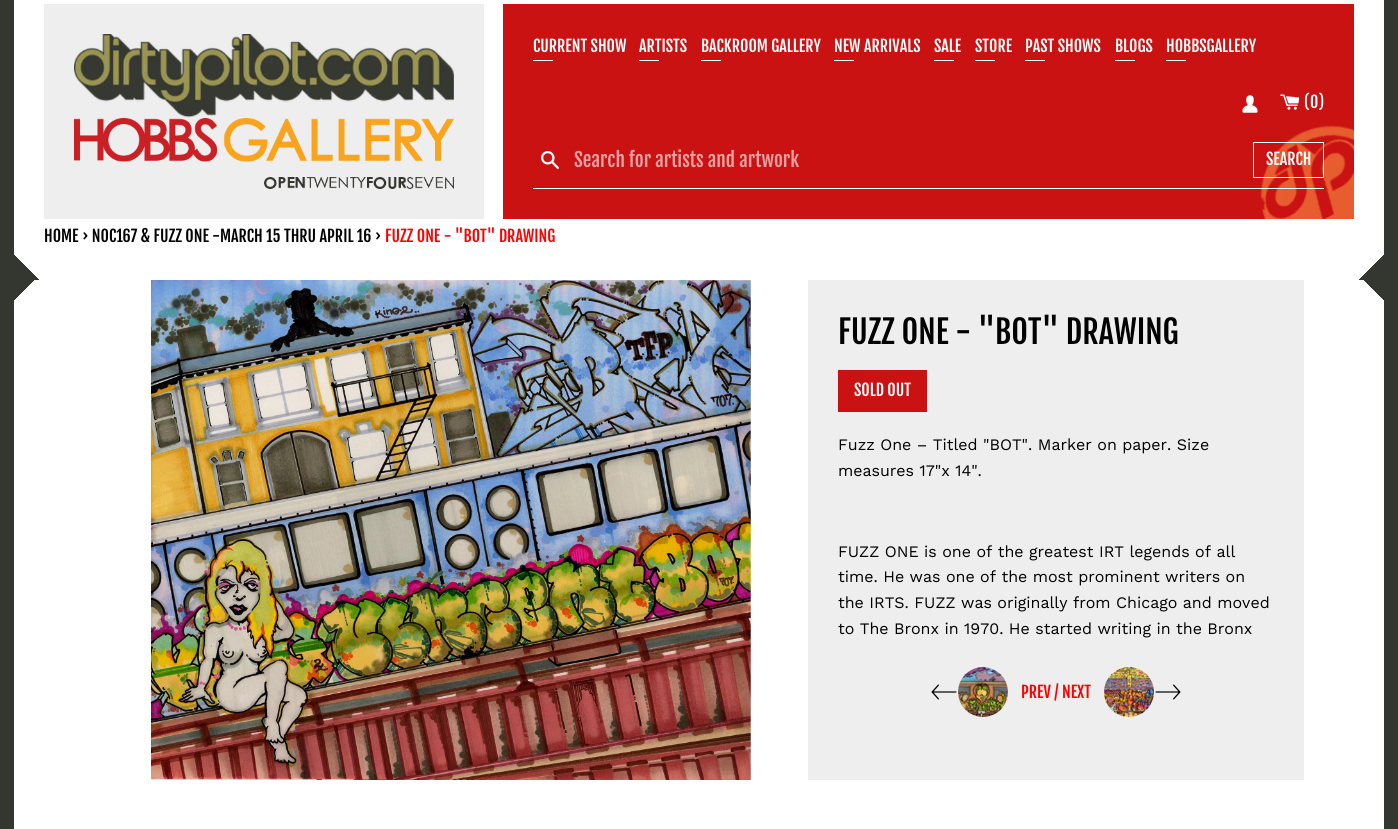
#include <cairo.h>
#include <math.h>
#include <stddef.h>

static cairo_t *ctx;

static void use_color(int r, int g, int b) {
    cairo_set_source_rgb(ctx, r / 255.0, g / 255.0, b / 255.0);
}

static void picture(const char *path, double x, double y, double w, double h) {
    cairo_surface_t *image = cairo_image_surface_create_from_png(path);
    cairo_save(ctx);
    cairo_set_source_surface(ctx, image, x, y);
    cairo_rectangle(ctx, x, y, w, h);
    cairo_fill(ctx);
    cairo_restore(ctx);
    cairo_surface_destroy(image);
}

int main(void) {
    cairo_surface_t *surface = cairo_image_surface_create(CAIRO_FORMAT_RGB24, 1398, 829);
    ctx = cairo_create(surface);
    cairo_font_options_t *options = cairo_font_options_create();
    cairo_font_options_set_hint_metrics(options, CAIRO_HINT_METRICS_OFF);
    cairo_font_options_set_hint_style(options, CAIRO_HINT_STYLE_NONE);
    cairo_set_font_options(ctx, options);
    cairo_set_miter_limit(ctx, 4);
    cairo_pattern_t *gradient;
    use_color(52, 55, 47);
    cairo_paint(ctx);
    use_color(255, 255, 255);
    cairo_rectangle(ctx, 14, 0, 1370, 125);
    cairo_fill(ctx);
    gradient = cairo_pattern_create_linear(1250, 414, 826, -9);
    cairo_pattern_add_color_stop_rgba(gradient, 0.03, 1, 1, 1, 0);
    cairo_pattern_add_color_stop_rgba(gradient, 0.03, 1, 1, 1, 1);
    cairo_set_source(ctx, gradient);
    cairo_pattern_destroy(gradient);
    cairo_rectangle(ctx, 706, 125, 678, 155);
    cairo_fill(ctx);
    gradient = cairo_pattern_create_linear(148, 414, 572, -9);
    cairo_pattern_add_color_stop_rgba(gradient, 0.03, 1, 1, 1, 0);
    cairo_pattern_add_color_stop_rgba(gradient, 0.03, 1, 1, 1, 1);
    cairo_set_source(ctx, gradient);
    cairo_pattern_destroy(gradient);
    cairo_rectangle(ctx, 14, 125, 692, 155);
    cairo_fill(ctx);
    use_color(238, 238, 238);
    cairo_rectangle(ctx, 44, 4, 440, 215);
    cairo_fill(ctx);
    picture("img1.png", 74, 34, 380, 84);
    picture("img2.png", 74, 118, 380, 44);
    picture("img3.png", 264, 177, 190, 12);
    use_color(203, 18, 19);
    cairo_rectangle(ctx, 503, 4, 851, 215);
    cairo_fill(ctx);
    picture("img4.png", 1260, 125, 94, 94);
    cairo_select_font_face(ctx, "Fjalla One", CAIRO_FONT_SLANT_NORMAL, CAIRO_FONT_WEIGHT_NORMAL);
    cairo_set_font_size(ctx, 16);
    use_color(255, 255, 255);
    cairo_move_to(ctx, 533, 52);
    cairo_show_text(ctx, "CURRENT SHOW");
    cairo_rectangle(ctx, 533, 60, 20, 1);
    cairo_fill(ctx);
    cairo_move_to(ctx, 639, 52);
    cairo_show_text(ctx, "ARTISTS");
    cairo_rectangle(ctx, 639, 60, 20, 1);
    cairo_fill(ctx);
    cairo_move_to(ctx, 701, 52);
    cairo_show_text(ctx, "BACKROOM GALLERY");
    cairo_rectangle(ctx, 701, 60, 20, 1);
    cairo_fill(ctx);
    cairo_move_to(ctx, 834, 52);
    cairo_show_text(ctx, "NEW ARRIVALS");
    cairo_rectangle(ctx, 834, 60, 20, 1);
    cairo_fill(ctx);
    cairo_move_to(ctx, 934, 52);
    cairo_show_text(ctx, "SALE");
    cairo_rectangle(ctx, 934, 60, 20, 1);
    cairo_fill(ctx);
    cairo_move_to(ctx, 975, 52);
    cairo_show_text(ctx, "STORE");
    cairo_rectangle(ctx, 975, 60, 20, 1);
    cairo_fill(ctx);
    cairo_move_to(ctx, 1025, 52);
    cairo_show_text(ctx, "PAST SHOWS");
    cairo_rectangle(ctx, 1025, 60, 20, 1);
    cairo_fill(ctx);
    cairo_move_to(ctx, 1115, 52);
    cairo_show_text(ctx, "BLOGS");
    cairo_rectangle(ctx, 1115, 60, 20, 1);
    cairo_fill(ctx);
    cairo_move_to(ctx, 1166, 52);
    cairo_show_text(ctx, "HOBBSGALLERY");
    cairo_rectangle(ctx, 1166, 60, 20, 1);
    cairo_fill(ctx);
    picture("img5.png", 1242, 95, 16, 18);
    picture("img6.png", 1280, 94, 20, 16);
    cairo_move_to(ctx, 1304, 108);
    cairo_show_text(ctx, "(0)");
    cairo_rectangle(ctx, 533, 188, 791, 1);
    cairo_fill(ctx);
    picture("img7.png", 541, 151, 18, 18);
    cairo_set_font_size(ctx, 19.25);
    use_color(234, 160, 161);
    cairo_move_to(ctx, 574, 167);
    cairo_show_text(ctx, "Search for artists and artwork");
    cairo_rectangle(ctx, 1253.5, 142.5, 70, 35);
    use_color(255, 255, 255);
    cairo_set_line_width(ctx, 1);
    cairo_stroke(ctx);
    cairo_set_font_size(ctx, 16);
    cairo_move_to(ctx, 1266, 165);
    cairo_show_text(ctx, "SEARCH");
    use_color(0, 0, 0);
    cairo_move_to(ctx, 44, 242);
    cairo_show_text(ctx, "HOME › NOC167 & FUZZ ONE -MARCH 15 THRU APRIL 16 ›");
    use_color(255, 0, 0);
    cairo_move_to(ctx, 385, 242);
    cairo_show_text(ctx, "FUZZ ONE - \"BOT\" DRAWING");
    gradient = cairo_pattern_create_linear(104, 190, 616, 702);
    cairo_pattern_add_color_stop_rgba(gradient, 0.02, 0.204, 0.216, 0.184, 1);
    cairo_pattern_add_color_stop_rgba(gradient, 0.02, 1, 1, 1, 1);
    cairo_set_source(ctx, gradient);
    cairo_pattern_destroy(gradient);
    cairo_rectangle(ctx, 14, 280, 137, 326);
    cairo_fill(ctx);
    gradient = cairo_pattern_create_linear(1294, 190, 782, 702);
    cairo_pattern_add_color_stop_rgba(gradient, 0.02, 1, 1, 1, 0);
    cairo_pattern_add_color_stop_rgba(gradient, 0.02, 1, 1, 1, 1);
    cairo_set_source(ctx, gradient);
    cairo_pattern_destroy(gradient);
    cairo_rectangle(ctx, 751, 280, 633, 326);
    cairo_fill(ctx);
    gradient = cairo_pattern_create_linear(1294, 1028, 782, 516);
    cairo_pattern_add_color_stop_rgba(gradient, 0.02, 1, 1, 1, 0);
    cairo_pattern_add_color_stop_rgba(gradient, 0.02, 1, 1, 1, 1);
    cairo_set_source(ctx, gradient);
    cairo_pattern_destroy(gradient);
    cairo_rectangle(ctx, 706, 606, 678, 223);
    cairo_fill(ctx);
    gradient = cairo_pattern_create_linear(104, 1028, 616, 516);
    cairo_pattern_add_color_stop_rgba(gradient, 0.02, 1, 1, 1, 0);
    cairo_pattern_add_color_stop_rgba(gradient, 0.02, 1, 1, 1, 1);
    cairo_set_source(ctx, gradient);
    cairo_pattern_destroy(gradient);
    cairo_rectangle(ctx, 14, 606, 692, 223);
    cairo_fill(ctx);
    picture("img8.png", 151, 280, 600, 500);
    use_color(238, 238, 238);
    cairo_rectangle(ctx, 808, 280, 496, 500);
    cairo_fill(ctx);
    cairo_set_font_size(ctx, 32);
    use_color(0, 0, 0);
    cairo_move_to(ctx, 838, 344);
    cairo_show_text(ctx, "FUZZ ONE - \"BOT\" DRAWING");
    use_color(203, 18, 19);
    cairo_rectangle(ctx, 838, 370, 89, 42);
    cairo_fill(ctx);
    cairo_set_font_size(ctx, 16);
    use_color(255, 255, 255);
    cairo_move_to(ctx, 854, 396);
    cairo_show_text(ctx, "SOLD OUT");
    cairo_select_font_face(ctx, "Work Sans", CAIRO_FONT_SLANT_NORMAL, CAIRO_FONT_WEIGHT_NORMAL);
    use_color(0, 0, 0);
    cairo_move_to(ctx, 838, 450);
    cairo_show_text(ctx, "Fuzz One – Titled \"BOT\". Marker on paper. Size");
    cairo_move_to(ctx, 838, 476);
    cairo_show_text(ctx, "measures 17\"x 14\".");
    cairo_move_to(ctx, 838, 557);
    cairo_show_text(ctx, "FUZZ ONE is one of the greatest IRT legends of all");
    cairo_move_to(ctx, 838, 582);
    cairo_show_text(ctx, "time. He was one of the most prominent writers on");
    cairo_move_to(ctx, 838, 608);
    cairo_show_text(ctx, "the IRTS. FUZZ was originally from Chicago and moved");
    cairo_move_to(ctx, 838, 634);
    cairo_show_text(ctx, "to The Bronx in 1970. He started writing in the Bronx");
    picture("img9.png", 931, 684, 26, 16);
    picture("img10.png", 958, 667, 50, 50);
    cairo_select_font_face(ctx, "Fjalla One", CAIRO_FONT_SLANT_NORMAL, CAIRO_FONT_WEIGHT_NORMAL);
    use_color(255, 0, 0);
    cairo_move_to(ctx, 1021, 698);
    cairo_show_text(ctx, "PREV / NEXT");
    picture("img11.png", 1104, 667, 50, 50);
    picture("img12.png", 1155, 684, 26, 16);
    cairo_surface_write_to_png(surface, "result.png");
    cairo_font_options_destroy(options);
    cairo_destroy(ctx);
    cairo_surface_destroy(surface);
    return 0;
}
